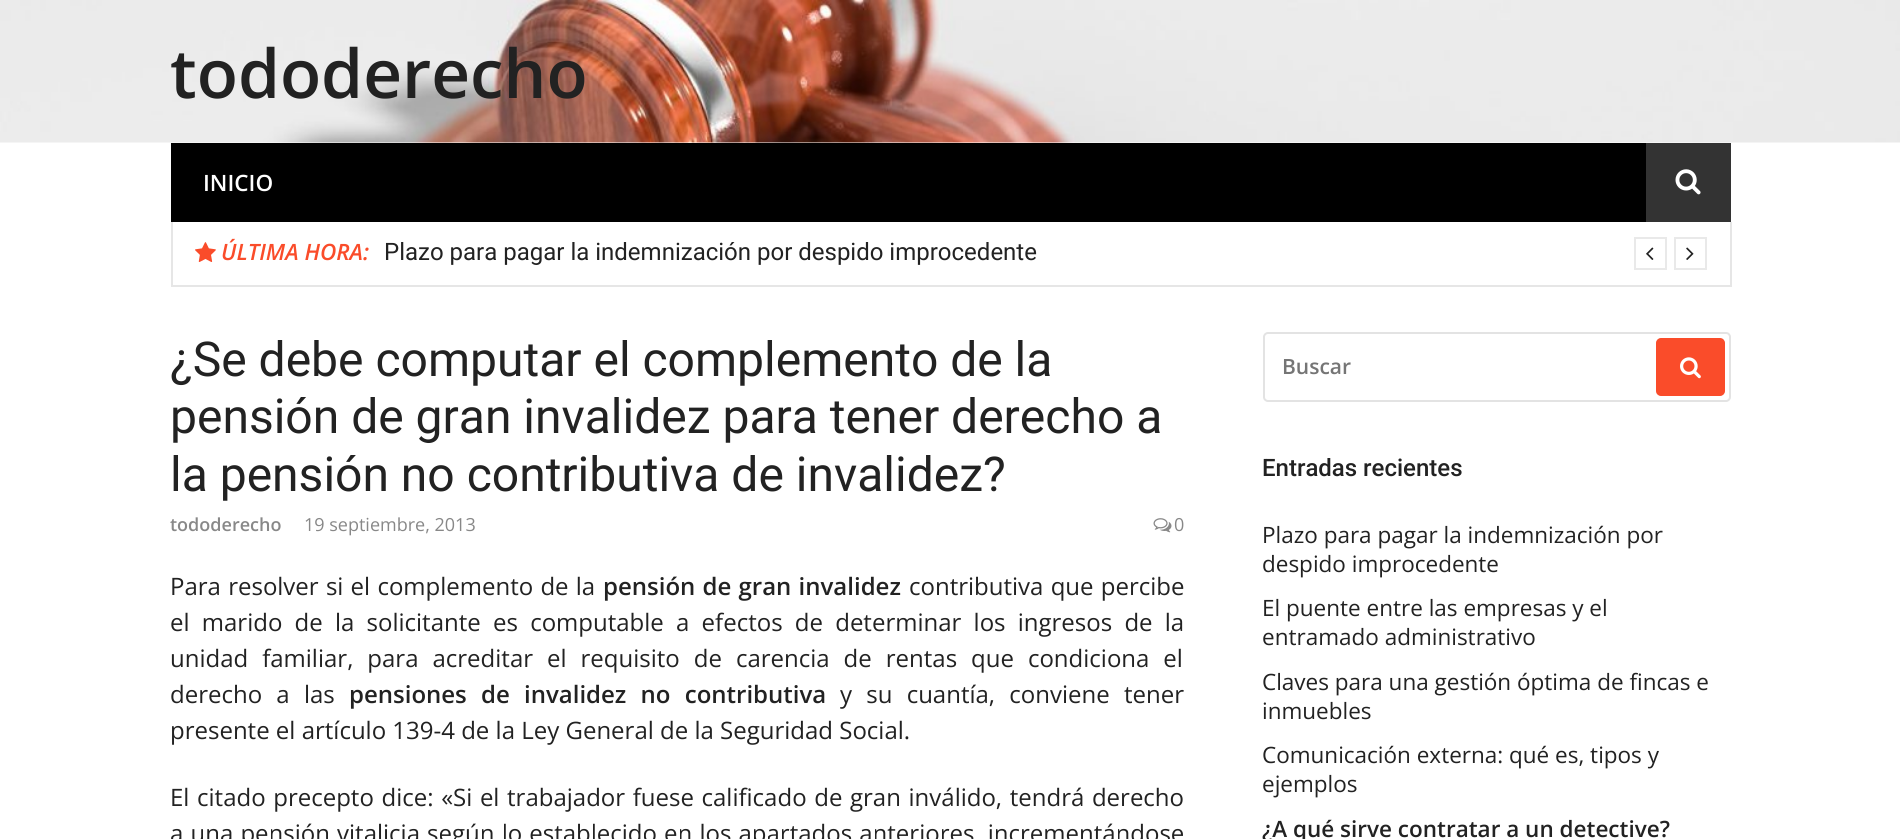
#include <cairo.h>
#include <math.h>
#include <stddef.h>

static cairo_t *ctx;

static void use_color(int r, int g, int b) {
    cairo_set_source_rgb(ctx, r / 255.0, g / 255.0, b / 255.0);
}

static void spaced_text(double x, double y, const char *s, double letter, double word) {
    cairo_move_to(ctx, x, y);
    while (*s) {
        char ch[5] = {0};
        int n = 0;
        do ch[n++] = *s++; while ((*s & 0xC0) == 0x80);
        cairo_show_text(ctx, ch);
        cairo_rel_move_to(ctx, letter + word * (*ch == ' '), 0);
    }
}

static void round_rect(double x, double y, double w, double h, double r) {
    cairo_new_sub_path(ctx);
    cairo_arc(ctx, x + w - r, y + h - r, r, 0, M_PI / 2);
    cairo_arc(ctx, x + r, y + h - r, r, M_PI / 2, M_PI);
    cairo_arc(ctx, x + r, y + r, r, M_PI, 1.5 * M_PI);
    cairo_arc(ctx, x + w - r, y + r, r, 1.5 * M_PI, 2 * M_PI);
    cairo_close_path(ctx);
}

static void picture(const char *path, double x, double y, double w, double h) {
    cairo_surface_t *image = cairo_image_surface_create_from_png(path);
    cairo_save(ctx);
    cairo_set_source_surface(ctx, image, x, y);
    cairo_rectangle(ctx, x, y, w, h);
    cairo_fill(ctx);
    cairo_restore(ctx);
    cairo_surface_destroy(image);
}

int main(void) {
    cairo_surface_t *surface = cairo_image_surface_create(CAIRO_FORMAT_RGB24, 1900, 839);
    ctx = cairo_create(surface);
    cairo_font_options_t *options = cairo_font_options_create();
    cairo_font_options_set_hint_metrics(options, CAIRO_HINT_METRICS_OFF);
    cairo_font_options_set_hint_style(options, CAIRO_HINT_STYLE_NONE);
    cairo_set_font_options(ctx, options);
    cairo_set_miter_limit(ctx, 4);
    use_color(255, 255, 255);
    cairo_paint(ctx);
    picture("img1.png", 0, 0, 1900, 143);
    cairo_select_font_face(ctx, "Open Sans SemiBold", CAIRO_FONT_SLANT_NORMAL, CAIRO_FONT_WEIGHT_NORMAL);
    cairo_set_font_size(ctx, 67.5);
    use_color(34, 34, 34);
    cairo_move_to(ctx, 170, 98);
    cairo_show_text(ctx, "tododerecho");
    use_color(0, 0, 0);
    cairo_rectangle(ctx, 171, 143, 1475, 79);
    cairo_fill(ctx);
    cairo_set_font_size(ctx, 22.5);
    use_color(255, 255, 255);
    cairo_move_to(ctx, 203, 191);
    cairo_show_text(ctx, "INICIO");
    use_color(51, 51, 51);
    cairo_rectangle(ctx, 1646, 143, 85, 79);
    cairo_fill(ctx);
    picture("img2.png", 1675, 169, 26, 26);
    use_color(230, 230, 230);
    cairo_rectangle(ctx, 1730, 222, 2, 65);
    cairo_fill(ctx);
    cairo_rectangle(ctx, 171, 285, 1560, 2);
    cairo_fill(ctx);
    cairo_rectangle(ctx, 171, 222, 2, 65);
    cairo_fill(ctx);
    picture("img3.png", 195, 242, 21, 20);
    cairo_select_font_face(ctx, "Open Sans SemiBold", CAIRO_FONT_SLANT_ITALIC, CAIRO_FONT_WEIGHT_NORMAL);
    use_color(250, 76, 42);
    cairo_move_to(ctx, 221, 260);
    cairo_show_text(ctx, "ÚLTIMA HORA:");
    cairo_select_font_face(ctx, "Roboto", CAIRO_FONT_SLANT_NORMAL, CAIRO_FONT_WEIGHT_NORMAL);
    cairo_set_font_size(ctx, 24);
    use_color(34, 34, 34);
    cairo_move_to(ctx, 384, 260);
    cairo_show_text(ctx, "Plazo para pagar la indemnización por despido improcedente");
    cairo_rectangle(ctx, 1635, 238, 31, 31);
    use_color(233, 233, 233);
    cairo_stroke(ctx);
    picture("img4.png", 1646, 247, 8, 13);
    cairo_rectangle(ctx, 1675, 238, 31, 31);
    cairo_stroke(ctx);
    picture("img5.png", 1686, 247, 8, 13);
    cairo_set_font_size(ctx, 48);
    use_color(34, 34, 34);
    cairo_move_to(ctx, 170, 376);
    cairo_show_text(ctx, "¿Se debe computar el complemento de la");
    cairo_move_to(ctx, 170, 433);
    cairo_show_text(ctx, "pensión de gran invalidez para tener derecho a");
    cairo_move_to(ctx, 170, 491);
    cairo_show_text(ctx, "la pensión no contributiva de invalidez?");
    cairo_select_font_face(ctx, "Open Sans SemiBold", CAIRO_FONT_SLANT_NORMAL, CAIRO_FONT_WEIGHT_NORMAL);
    cairo_set_font_size(ctx, 18);
    use_color(136, 136, 136);
    cairo_move_to(ctx, 170, 531);
    cairo_show_text(ctx, "tododerecho");
    cairo_select_font_face(ctx, "Open Sans", CAIRO_FONT_SLANT_NORMAL, CAIRO_FONT_WEIGHT_NORMAL);
    cairo_move_to(ctx, 304, 531);
    cairo_show_text(ctx, "19 septiembre, 2013");
    picture("img6.png", 1153, 518, 19, 15);
    cairo_move_to(ctx, 1174, 531);
    cairo_show_text(ctx, "0");
    cairo_set_font_size(ctx, 24);
    use_color(34, 34, 34);
    spaced_text(170, 595, "Para resolver si el complemento de la", 0, 1);
    cairo_select_font_face(ctx, "Open Sans SemiBold", CAIRO_FONT_SLANT_NORMAL, CAIRO_FONT_WEIGHT_NORMAL);
    spaced_text(603, 595, "pensión de gran invalidez", 0, 1);
    cairo_select_font_face(ctx, "Open Sans", CAIRO_FONT_SLANT_NORMAL, CAIRO_FONT_WEIGHT_NORMAL);
    spaced_text(909, 595, "contributiva que percibe", 0, 1);
    spaced_text(170, 631, "el marido de la solicitante es computable a efectos de determinar los ingresos de la", 0, 6);
    spaced_text(170, 667, "unidad familiar, para acreditar el requisito de carencia de rentas que condiciona el", 0, 7.75);
    spaced_text(170, 703, "derecho a las", 0, 8);
    cairo_select_font_face(ctx, "Open Sans SemiBold", CAIRO_FONT_SLANT_NORMAL, CAIRO_FONT_WEIGHT_NORMAL);
    spaced_text(349, 703, "pensiones de invalidez no contributiva", 0, 8);
    cairo_select_font_face(ctx, "Open Sans", CAIRO_FONT_SLANT_NORMAL, CAIRO_FONT_WEIGHT_NORMAL);
    spaced_text(840, 703, "y su cuantía, conviene tener", 0, 8);
    cairo_move_to(ctx, 170, 739);
    cairo_show_text(ctx, "presente el artículo 139-4 de la Ley General de la Seguridad Social.");
    spaced_text(170, 806, "El citado precepto dice: «Si el trabajador fuese calificado de gran inválido, tendrá derecho", 0, 1.4);
    spaced_text(170, 842, "a una pensión vitalicia según lo establecido en los apartados anteriores, incrementándose", 0, 0.9);
    round_rect(1264, 333, 466, 68, 4);
    use_color(227, 227, 227);
    cairo_stroke(ctx);
    cairo_select_font_face(ctx, "Open Sans SemiBold", CAIRO_FONT_SLANT_NORMAL, CAIRO_FONT_WEIGHT_NORMAL);
    cairo_set_font_size(ctx, 21);
    use_color(117, 117, 117);
    cairo_move_to(ctx, 1282, 374);
    cairo_show_text(ctx, "Buscar");
    use_color(250, 76, 42);
    round_rect(1657, 339, 67, 56, 4);
    cairo_fill_preserve(ctx);
    cairo_stroke(ctx);
    picture("img7.png", 1680, 357, 21, 22);
    cairo_select_font_face(ctx, "Roboto Medium", CAIRO_FONT_SLANT_NORMAL, CAIRO_FONT_WEIGHT_NORMAL);
    cairo_set_font_size(ctx, 24);
    use_color(34, 34, 34);
    cairo_move_to(ctx, 1262, 476);
    cairo_show_text(ctx, "Entradas recientes");
    cairo_select_font_face(ctx, "Open Sans", CAIRO_FONT_SLANT_NORMAL, CAIRO_FONT_WEIGHT_NORMAL);
    cairo_set_font_size(ctx, 22.5);
    cairo_move_to(ctx, 1262, 543);
    cairo_show_text(ctx, "Plazo para pagar la indemnización por");
    cairo_move_to(ctx, 1262, 572);
    cairo_show_text(ctx, "despido improcedente");
    cairo_move_to(ctx, 1262, 616);
    cairo_show_text(ctx, "El puente entre las empresas y el");
    cairo_move_to(ctx, 1262, 645);
    cairo_show_text(ctx, "entramado administrativo");
    cairo_move_to(ctx, 1262, 690);
    cairo_show_text(ctx, "Claves para una gestión óptima de fincas e");
    cairo_move_to(ctx, 1262, 719);
    cairo_show_text(ctx, "inmuebles");
    cairo_move_to(ctx, 1262, 763);
    cairo_show_text(ctx, "Comunicación externa: qué es, tipos y");
    cairo_move_to(ctx, 1262, 792);
    cairo_show_text(ctx, "ejemplos");
    cairo_select_font_face(ctx, "Open Sans SemiBold", CAIRO_FONT_SLANT_NORMAL, CAIRO_FONT_WEIGHT_NORMAL);
    cairo_move_to(ctx, 1262, 837);
    cairo_show_text(ctx, "¿A qué sirve contratar a un detective?");
    cairo_surface_write_to_png(surface, "result.png");
    cairo_font_options_destroy(options);
    cairo_destroy(ctx);
    cairo_surface_destroy(surface);
    return 0;
}
